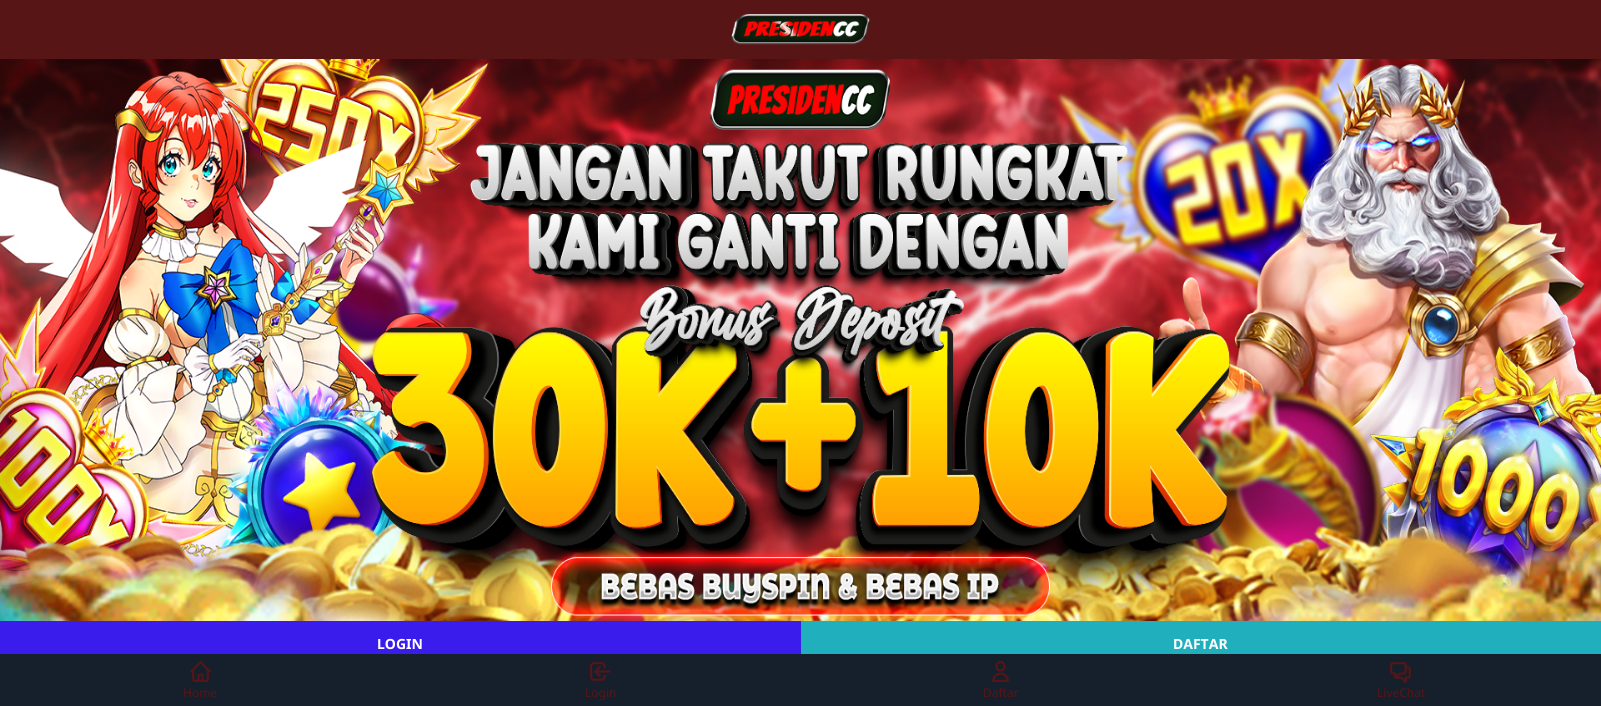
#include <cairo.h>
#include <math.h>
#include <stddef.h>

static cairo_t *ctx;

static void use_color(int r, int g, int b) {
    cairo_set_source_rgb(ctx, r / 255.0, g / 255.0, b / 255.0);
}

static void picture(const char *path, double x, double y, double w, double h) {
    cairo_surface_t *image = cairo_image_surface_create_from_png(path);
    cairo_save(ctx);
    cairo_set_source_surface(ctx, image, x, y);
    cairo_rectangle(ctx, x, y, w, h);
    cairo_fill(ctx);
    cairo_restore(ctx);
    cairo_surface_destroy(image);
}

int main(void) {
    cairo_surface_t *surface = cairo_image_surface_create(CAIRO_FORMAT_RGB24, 1601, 706);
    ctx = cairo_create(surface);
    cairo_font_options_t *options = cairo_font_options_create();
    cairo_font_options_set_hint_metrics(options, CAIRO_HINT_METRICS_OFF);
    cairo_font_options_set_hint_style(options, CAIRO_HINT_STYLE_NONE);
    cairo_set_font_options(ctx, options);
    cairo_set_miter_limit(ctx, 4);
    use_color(58, 29, 237);
    cairo_paint(ctx);
    use_color(87, 21, 21);
    cairo_rectangle(ctx, 0, 0, 1601, 59);
    cairo_fill(ctx);
    picture("img1.png", 731, 14, 139, 31);
    picture("img2.png", 0, 59, 1601, 562);
    cairo_select_font_face(ctx, "Noto Sans", CAIRO_FONT_SLANT_NORMAL, CAIRO_FONT_WEIGHT_BOLD);
    cairo_set_font_size(ctx, 14);
    use_color(255, 255, 255);
    cairo_move_to(ctx, 377, 649);
    cairo_show_text(ctx, "LOGIN");
    use_color(32, 175, 189);
    cairo_rectangle(ctx, 801, 621, 800, 33);
    cairo_fill(ctx);
    use_color(255, 255, 255);
    cairo_move_to(ctx, 1173, 649);
    cairo_show_text(ctx, "DAFTAR");
    use_color(22, 31, 44);
    cairo_rectangle(ctx, 0, 654, 1601, 52);
    cairo_fill(ctx);
    picture("img3.png", 190, 661, 21, 21);
    cairo_select_font_face(ctx, "Noto Sans", CAIRO_FONT_SLANT_NORMAL, CAIRO_FONT_WEIGHT_NORMAL);
    cairo_set_font_size(ctx, 12);
    use_color(87, 21, 21);
    cairo_move_to(ctx, 183, 697);
    cairo_show_text(ctx, "Home");
    picture("img4.png", 590, 662, 21, 19);
    cairo_move_to(ctx, 585, 697);
    cairo_show_text(ctx, "Login");
    picture("img5.png", 992, 661, 17, 21);
    cairo_move_to(ctx, 983, 697);
    cairo_show_text(ctx, "Daftar");
    picture("img6.png", 1390, 662, 21, 21);
    cairo_move_to(ctx, 1377, 697);
    cairo_show_text(ctx, "LiveChat");
    cairo_surface_write_to_png(surface, "result.png");
    cairo_font_options_destroy(options);
    cairo_destroy(ctx);
    cairo_surface_destroy(surface);
    return 0;
}
